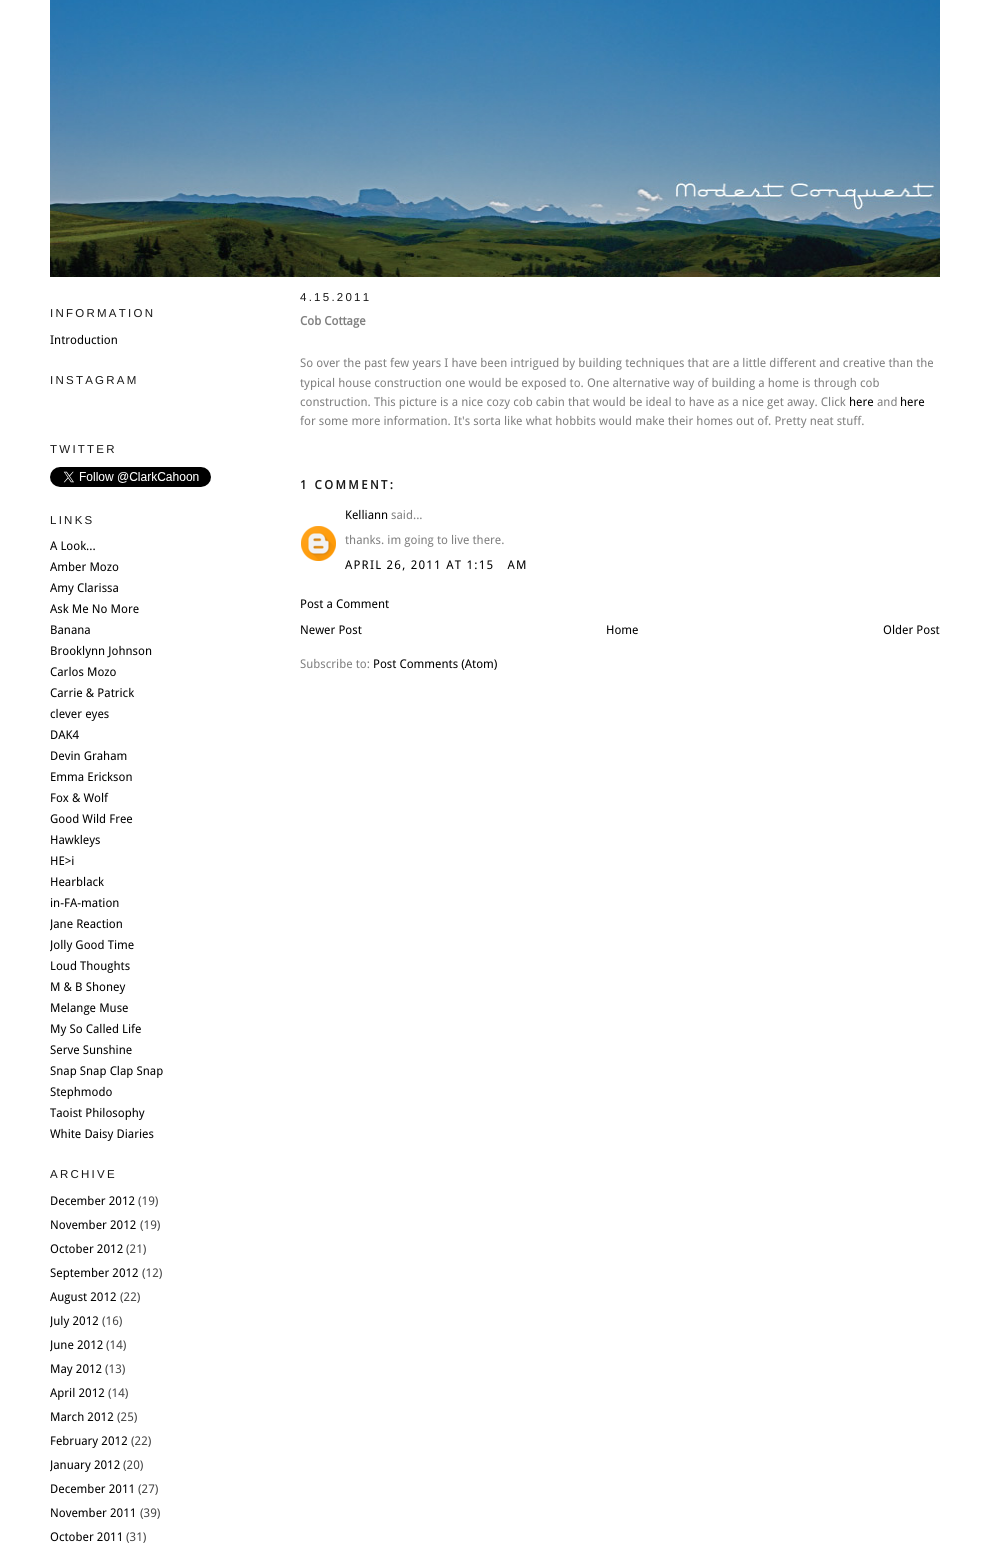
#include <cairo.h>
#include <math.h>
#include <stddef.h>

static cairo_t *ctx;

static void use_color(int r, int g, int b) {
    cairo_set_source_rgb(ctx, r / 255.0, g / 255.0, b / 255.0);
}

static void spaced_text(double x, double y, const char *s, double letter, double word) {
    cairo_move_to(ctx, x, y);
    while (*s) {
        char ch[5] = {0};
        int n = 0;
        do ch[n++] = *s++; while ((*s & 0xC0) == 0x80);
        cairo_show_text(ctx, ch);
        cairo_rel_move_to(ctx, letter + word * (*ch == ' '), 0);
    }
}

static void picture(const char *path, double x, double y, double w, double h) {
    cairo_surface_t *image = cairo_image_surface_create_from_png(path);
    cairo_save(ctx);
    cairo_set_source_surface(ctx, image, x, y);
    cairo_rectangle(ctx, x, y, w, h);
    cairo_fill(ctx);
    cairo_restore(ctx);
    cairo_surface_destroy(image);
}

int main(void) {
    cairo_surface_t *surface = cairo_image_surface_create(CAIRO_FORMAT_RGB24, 990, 1560);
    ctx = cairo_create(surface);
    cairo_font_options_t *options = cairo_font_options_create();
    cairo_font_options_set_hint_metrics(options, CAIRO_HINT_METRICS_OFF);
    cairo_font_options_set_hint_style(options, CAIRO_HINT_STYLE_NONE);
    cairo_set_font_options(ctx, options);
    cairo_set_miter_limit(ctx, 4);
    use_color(255, 255, 255);
    cairo_paint(ctx);
    picture("img1.png", 50, 0, 890, 277);
    cairo_select_font_face(ctx, "Liberation Sans", CAIRO_FONT_SLANT_NORMAL, CAIRO_FONT_WEIGHT_NORMAL);
    cairo_set_font_size(ctx, 11.5);
    use_color(25, 25, 25);
    spaced_text(50, 317, "INFORMATION", 2.25, 0);
    cairo_select_font_face(ctx, "Droid Sans", CAIRO_FONT_SLANT_NORMAL, CAIRO_FONT_WEIGHT_NORMAL);
    cairo_set_font_size(ctx, 12);
    use_color(0, 0, 0);
    cairo_move_to(ctx, 50, 344);
    cairo_show_text(ctx, "Introduction");
    cairo_select_font_face(ctx, "Liberation Sans", CAIRO_FONT_SLANT_NORMAL, CAIRO_FONT_WEIGHT_NORMAL);
    cairo_set_font_size(ctx, 11.5);
    use_color(25, 25, 25);
    spaced_text(50, 384, "INSTAGRAM", 2.25, 0);
    spaced_text(50, 453, "TWITTER", 2.25, 0);
    picture("img2.png", 50, 467, 161, 20);
    spaced_text(50, 524, "LINKS", 2.25, 0);
    cairo_select_font_face(ctx, "Droid Sans", CAIRO_FONT_SLANT_NORMAL, CAIRO_FONT_WEIGHT_NORMAL);
    cairo_set_font_size(ctx, 12);
    use_color(0, 0, 0);
    cairo_move_to(ctx, 50, 550);
    cairo_show_text(ctx, "A Look...");
    cairo_move_to(ctx, 50, 571);
    cairo_show_text(ctx, "Amber Mozo");
    cairo_move_to(ctx, 50, 592);
    cairo_show_text(ctx, "Amy Clarissa");
    cairo_move_to(ctx, 50, 613);
    cairo_show_text(ctx, "Ask Me No More");
    cairo_move_to(ctx, 50, 634);
    cairo_show_text(ctx, "Banana");
    cairo_move_to(ctx, 50, 655);
    cairo_show_text(ctx, "Brooklynn Johnson");
    cairo_move_to(ctx, 50, 676);
    cairo_show_text(ctx, "Carlos Mozo");
    cairo_move_to(ctx, 50, 697);
    cairo_show_text(ctx, "Carrie & Patrick");
    cairo_move_to(ctx, 50, 718);
    cairo_show_text(ctx, "clever eyes");
    cairo_move_to(ctx, 50, 739);
    cairo_show_text(ctx, "DAK4");
    cairo_move_to(ctx, 50, 760);
    cairo_show_text(ctx, "Devin Graham");
    cairo_move_to(ctx, 50, 781);
    cairo_show_text(ctx, "Emma Erickson");
    cairo_move_to(ctx, 50, 802);
    cairo_show_text(ctx, "Fox & Wolf");
    cairo_move_to(ctx, 50, 823);
    cairo_show_text(ctx, "Good Wild Free");
    cairo_move_to(ctx, 50, 844);
    cairo_show_text(ctx, "Hawkleys");
    cairo_move_to(ctx, 50, 865);
    cairo_show_text(ctx, "HE>i");
    cairo_move_to(ctx, 50, 886);
    cairo_show_text(ctx, "Hearblack");
    cairo_move_to(ctx, 50, 907);
    cairo_show_text(ctx, "in-FA-mation");
    cairo_save(ctx);
    cairo_rectangle(ctx, 50, 289, 200, 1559);
    cairo_clip(ctx);
    cairo_move_to(ctx, 50, 928);
    cairo_show_text(ctx, "Jane Reaction");
    cairo_move_to(ctx, 50, 949);
    cairo_show_text(ctx, "Jolly Good Time");
    cairo_restore(ctx);
    cairo_move_to(ctx, 50, 970);
    cairo_show_text(ctx, "Loud Thoughts");
    cairo_move_to(ctx, 50, 991);
    cairo_show_text(ctx, "M & B Shoney");
    cairo_move_to(ctx, 50, 1012);
    cairo_show_text(ctx, "Melange Muse");
    cairo_move_to(ctx, 50, 1033);
    cairo_show_text(ctx, "My So Called Life");
    cairo_move_to(ctx, 50, 1054);
    cairo_show_text(ctx, "Serve Sunshine");
    cairo_move_to(ctx, 50, 1075);
    cairo_show_text(ctx, "Snap Snap Clap Snap");
    cairo_move_to(ctx, 50, 1096);
    cairo_show_text(ctx, "Stephmodo");
    cairo_move_to(ctx, 50, 1117);
    cairo_show_text(ctx, "Taoist Philosophy");
    cairo_move_to(ctx, 50, 1138);
    cairo_show_text(ctx, "White Daisy Diaries");
    cairo_select_font_face(ctx, "Liberation Sans", CAIRO_FONT_SLANT_NORMAL, CAIRO_FONT_WEIGHT_NORMAL);
    cairo_set_font_size(ctx, 11.5);
    use_color(25, 25, 25);
    spaced_text(50, 1178, "ARCHIVE", 2.25, 0);
    cairo_select_font_face(ctx, "Droid Sans", CAIRO_FONT_SLANT_NORMAL, CAIRO_FONT_WEIGHT_NORMAL);
    cairo_set_font_size(ctx, 12);
    use_color(0, 0, 0);
    cairo_move_to(ctx, 50, 1205);
    cairo_show_text(ctx, "December 2012");
    use_color(68, 68, 68);
    cairo_move_to(ctx, 138, 1205);
    cairo_show_text(ctx, "(19)");
    use_color(0, 0, 0);
    cairo_move_to(ctx, 50, 1229);
    cairo_show_text(ctx, "November 2012");
    use_color(68, 68, 68);
    cairo_move_to(ctx, 140, 1229);
    cairo_show_text(ctx, "(19)");
    use_color(0, 0, 0);
    cairo_move_to(ctx, 50, 1253);
    cairo_show_text(ctx, "October 2012");
    use_color(68, 68, 68);
    cairo_move_to(ctx, 126, 1253);
    cairo_show_text(ctx, "(21)");
    use_color(0, 0, 0);
    cairo_move_to(ctx, 50, 1277);
    cairo_show_text(ctx, "September 2012");
    use_color(68, 68, 68);
    cairo_move_to(ctx, 142, 1277);
    cairo_show_text(ctx, "(12)");
    use_color(0, 0, 0);
    cairo_move_to(ctx, 50, 1301);
    cairo_show_text(ctx, "August 2012");
    use_color(68, 68, 68);
    cairo_move_to(ctx, 120, 1301);
    cairo_show_text(ctx, "(22)");
    cairo_save(ctx);
    cairo_rectangle(ctx, 50, 289, 200, 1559);
    cairo_clip(ctx);
    use_color(0, 0, 0);
    cairo_move_to(ctx, 50, 1325);
    cairo_show_text(ctx, "July 2012");
    cairo_restore(ctx);
    cairo_move_to(ctx, 102, 1325);
    cairo_show_text(ctx, "(16)");
    cairo_save(ctx);
    cairo_rectangle(ctx, 50, 289, 200, 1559);
    cairo_clip(ctx);
    use_color(0, 0, 0);
    cairo_move_to(ctx, 50, 1349);
    cairo_show_text(ctx, "June 2012");
    cairo_restore(ctx);
    cairo_move_to(ctx, 106, 1349);
    cairo_show_text(ctx, "(14)");
    use_color(0, 0, 0);
    cairo_move_to(ctx, 50, 1373);
    cairo_show_text(ctx, "May 2012");
    use_color(68, 68, 68);
    cairo_move_to(ctx, 105, 1373);
    cairo_show_text(ctx, "(13)");
    use_color(0, 0, 0);
    cairo_move_to(ctx, 50, 1397);
    cairo_show_text(ctx, "April 2012");
    use_color(68, 68, 68);
    cairo_move_to(ctx, 108, 1397);
    cairo_show_text(ctx, "(14)");
    use_color(0, 0, 0);
    cairo_move_to(ctx, 50, 1421);
    cairo_show_text(ctx, "March 2012");
    use_color(68, 68, 68);
    cairo_move_to(ctx, 117, 1421);
    cairo_show_text(ctx, "(25)");
    use_color(0, 0, 0);
    cairo_move_to(ctx, 50, 1445);
    cairo_show_text(ctx, "February 2012");
    use_color(68, 68, 68);
    cairo_move_to(ctx, 131, 1445);
    cairo_show_text(ctx, "(22)");
    cairo_save(ctx);
    cairo_rectangle(ctx, 50, 289, 200, 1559);
    cairo_clip(ctx);
    use_color(0, 0, 0);
    cairo_move_to(ctx, 50, 1469);
    cairo_show_text(ctx, "January 2012");
    cairo_restore(ctx);
    cairo_move_to(ctx, 123, 1469);
    cairo_show_text(ctx, "(20)");
    use_color(0, 0, 0);
    cairo_move_to(ctx, 50, 1493);
    cairo_show_text(ctx, "December 2011");
    use_color(68, 68, 68);
    cairo_move_to(ctx, 138, 1493);
    cairo_show_text(ctx, "(27)");
    use_color(0, 0, 0);
    cairo_move_to(ctx, 50, 1517);
    cairo_show_text(ctx, "November 2011");
    use_color(68, 68, 68);
    cairo_move_to(ctx, 140, 1517);
    cairo_show_text(ctx, "(39)");
    use_color(0, 0, 0);
    cairo_move_to(ctx, 50, 1541);
    cairo_show_text(ctx, "October 2011");
    use_color(68, 68, 68);
    cairo_move_to(ctx, 126, 1541);
    cairo_show_text(ctx, "(31)");
    cairo_select_font_face(ctx, "Liberation Sans", CAIRO_FONT_SLANT_NORMAL, CAIRO_FONT_WEIGHT_NORMAL);
    cairo_set_font_size(ctx, 11.5);
    use_color(25, 25, 25);
    spaced_text(300, 301, "4.15.2011", 2.25, 0);
    cairo_select_font_face(ctx, "Droid Sans", CAIRO_FONT_SLANT_NORMAL, CAIRO_FONT_WEIGHT_BOLD);
    cairo_set_font_size(ctx, 12);
    use_color(127, 127, 127);
    cairo_move_to(ctx, 300, 325);
    cairo_show_text(ctx, "Cob Cottage");
    cairo_select_font_face(ctx, "Droid Sans", CAIRO_FONT_SLANT_NORMAL, CAIRO_FONT_WEIGHT_NORMAL);
    cairo_move_to(ctx, 300, 367);
    cairo_show_text(ctx, "So over the past few years I have been intrigued by building techniques that are a little different and creative than the");
    cairo_move_to(ctx, 300, 387);
    cairo_show_text(ctx, "typical house construction one would be exposed to. One alternative way of building a home is through cob");
    cairo_move_to(ctx, 300, 406);
    cairo_show_text(ctx, "construction. This picture is a nice cozy cob cabin that would be ideal to have as a nice get away. Click");
    use_color(0, 0, 0);
    cairo_move_to(ctx, 849, 406);
    cairo_show_text(ctx, "here");
    use_color(127, 127, 127);
    cairo_move_to(ctx, 877, 406);
    cairo_show_text(ctx, "and");
    use_color(0, 0, 0);
    cairo_move_to(ctx, 900, 406);
    cairo_show_text(ctx, "here");
    use_color(127, 127, 127);
    cairo_move_to(ctx, 300, 425);
    cairo_show_text(ctx, "for some more information. It's sorta like what hobbits would make their homes out of. Pretty neat stuff.");
    cairo_select_font_face(ctx, "Droid Sans", CAIRO_FONT_SLANT_NORMAL, CAIRO_FONT_WEIGHT_BOLD);
    use_color(25, 25, 25);
    spaced_text(300, 489, "1 COMMENT:", 2.4, 0);
    cairo_select_font_face(ctx, "Droid Sans", CAIRO_FONT_SLANT_NORMAL, CAIRO_FONT_WEIGHT_NORMAL);
    use_color(0, 0, 0);
    cairo_move_to(ctx, 345, 519);
    cairo_show_text(ctx, "Kelliann");
    use_color(127, 127, 127);
    cairo_move_to(ctx, 391, 519);
    cairo_show_text(ctx, "said...");
    picture("img3.png", 301, 526, 35, 35);
    cairo_move_to(ctx, 345, 544);
    cairo_show_text(ctx, "thanks. im going to live there.");
    use_color(0, 0, 0);
    spaced_text(345, 569, "APRIL 26, 2011 AT 1:15 AM", 1.2, 0);
    cairo_move_to(ctx, 300, 608);
    cairo_show_text(ctx, "Post a Comment");
    cairo_move_to(ctx, 300, 634);
    cairo_show_text(ctx, "Newer Post");
    cairo_move_to(ctx, 606, 634);
    cairo_show_text(ctx, "Home");
    cairo_move_to(ctx, 883, 634);
    cairo_show_text(ctx, "Older Post");
    use_color(127, 127, 127);
    cairo_move_to(ctx, 300, 668);
    cairo_show_text(ctx, "Subscribe to:");
    use_color(0, 0, 0);
    cairo_move_to(ctx, 373, 668);
    cairo_show_text(ctx, "Post Comments (Atom)");
    cairo_surface_write_to_png(surface, "result.png");
    cairo_font_options_destroy(options);
    cairo_destroy(ctx);
    cairo_surface_destroy(surface);
    return 0;
}
